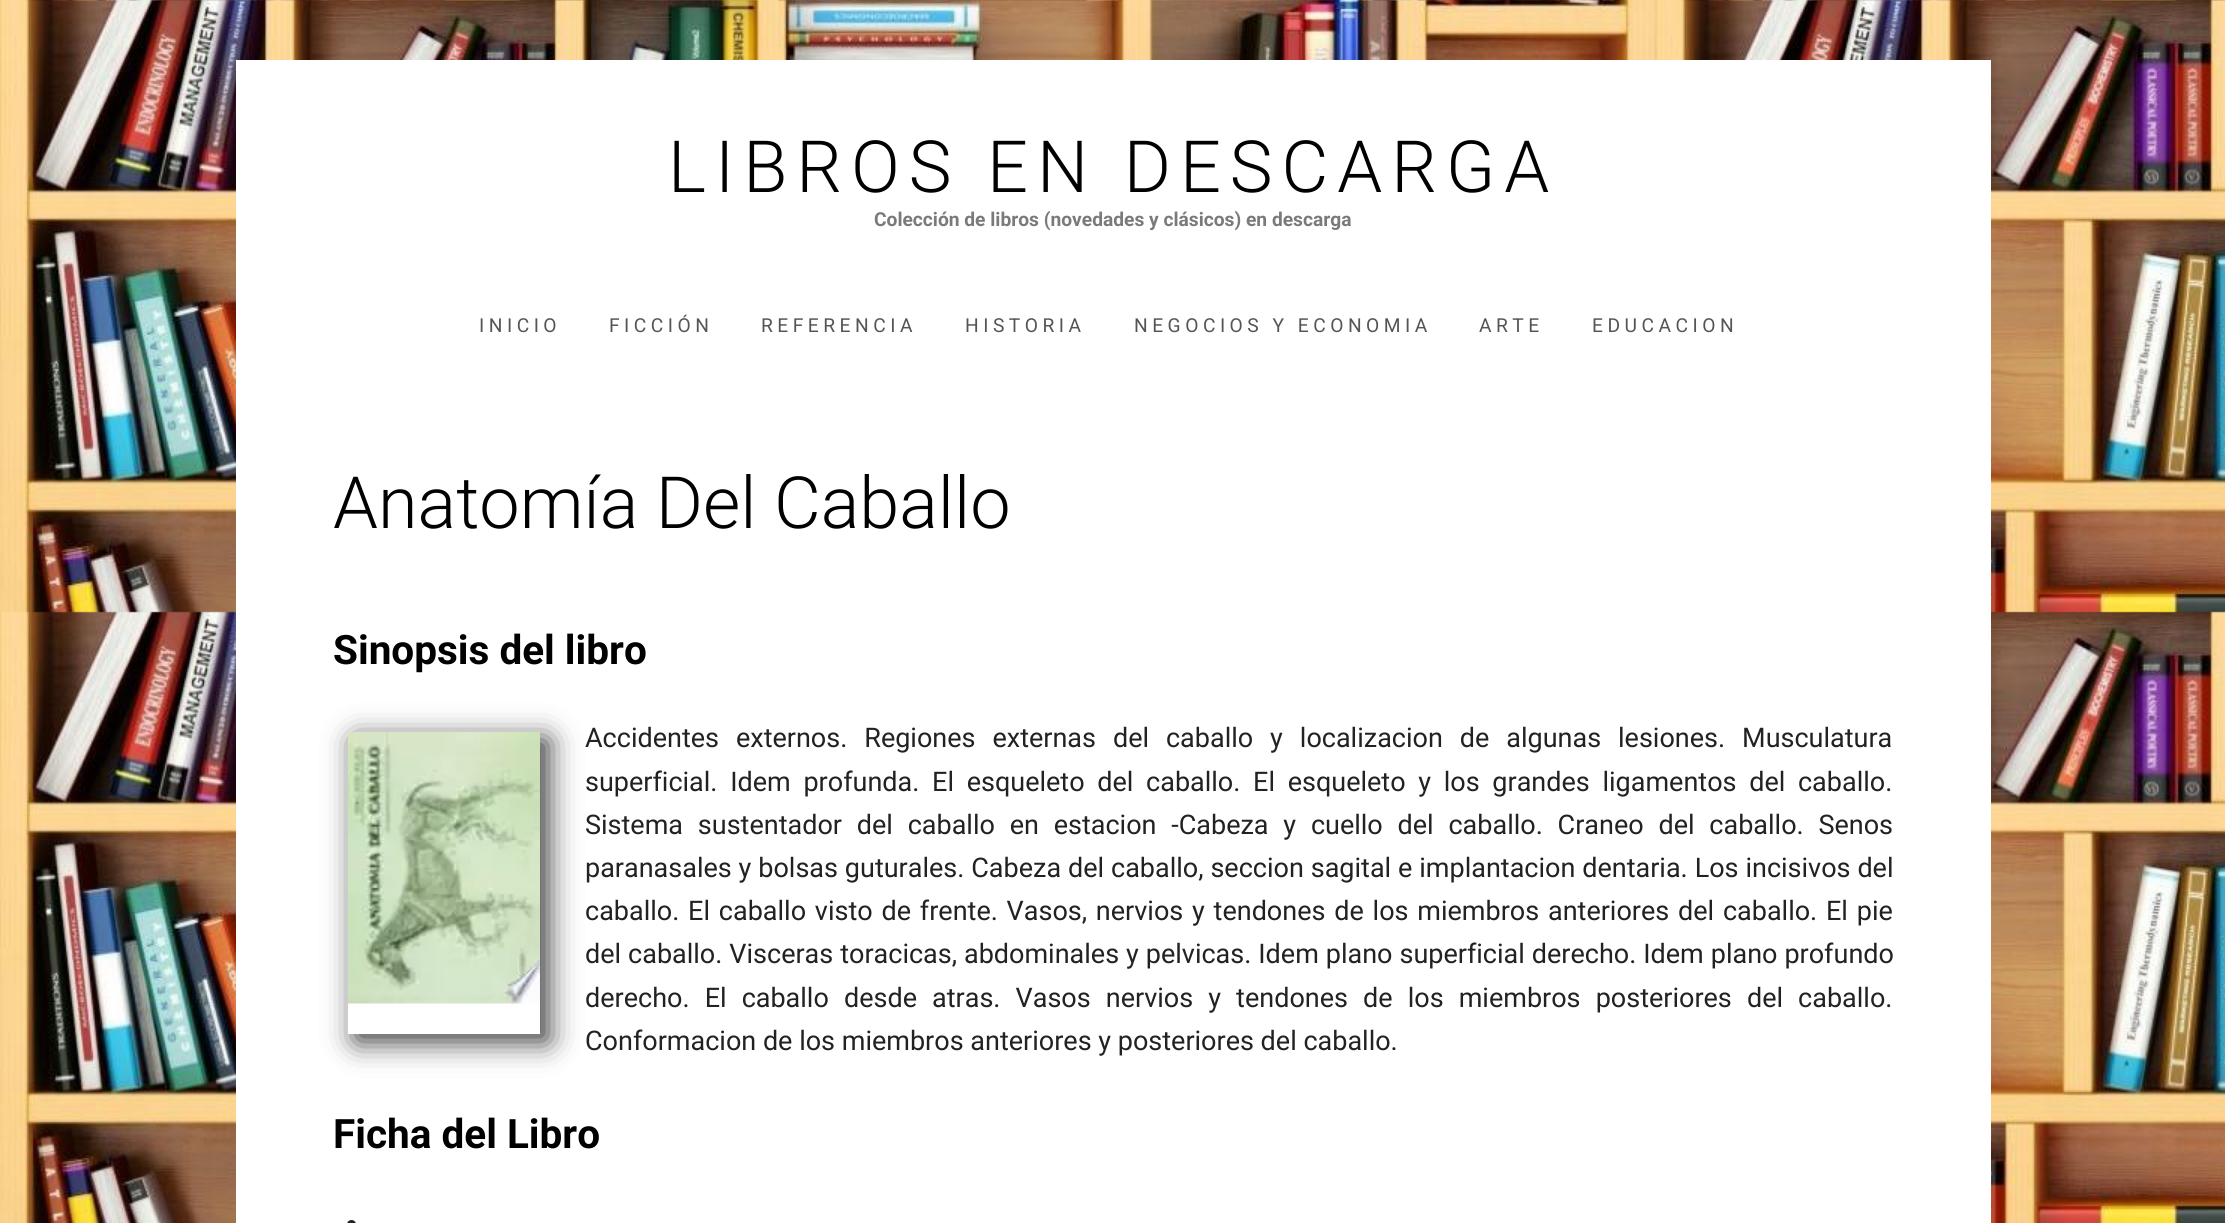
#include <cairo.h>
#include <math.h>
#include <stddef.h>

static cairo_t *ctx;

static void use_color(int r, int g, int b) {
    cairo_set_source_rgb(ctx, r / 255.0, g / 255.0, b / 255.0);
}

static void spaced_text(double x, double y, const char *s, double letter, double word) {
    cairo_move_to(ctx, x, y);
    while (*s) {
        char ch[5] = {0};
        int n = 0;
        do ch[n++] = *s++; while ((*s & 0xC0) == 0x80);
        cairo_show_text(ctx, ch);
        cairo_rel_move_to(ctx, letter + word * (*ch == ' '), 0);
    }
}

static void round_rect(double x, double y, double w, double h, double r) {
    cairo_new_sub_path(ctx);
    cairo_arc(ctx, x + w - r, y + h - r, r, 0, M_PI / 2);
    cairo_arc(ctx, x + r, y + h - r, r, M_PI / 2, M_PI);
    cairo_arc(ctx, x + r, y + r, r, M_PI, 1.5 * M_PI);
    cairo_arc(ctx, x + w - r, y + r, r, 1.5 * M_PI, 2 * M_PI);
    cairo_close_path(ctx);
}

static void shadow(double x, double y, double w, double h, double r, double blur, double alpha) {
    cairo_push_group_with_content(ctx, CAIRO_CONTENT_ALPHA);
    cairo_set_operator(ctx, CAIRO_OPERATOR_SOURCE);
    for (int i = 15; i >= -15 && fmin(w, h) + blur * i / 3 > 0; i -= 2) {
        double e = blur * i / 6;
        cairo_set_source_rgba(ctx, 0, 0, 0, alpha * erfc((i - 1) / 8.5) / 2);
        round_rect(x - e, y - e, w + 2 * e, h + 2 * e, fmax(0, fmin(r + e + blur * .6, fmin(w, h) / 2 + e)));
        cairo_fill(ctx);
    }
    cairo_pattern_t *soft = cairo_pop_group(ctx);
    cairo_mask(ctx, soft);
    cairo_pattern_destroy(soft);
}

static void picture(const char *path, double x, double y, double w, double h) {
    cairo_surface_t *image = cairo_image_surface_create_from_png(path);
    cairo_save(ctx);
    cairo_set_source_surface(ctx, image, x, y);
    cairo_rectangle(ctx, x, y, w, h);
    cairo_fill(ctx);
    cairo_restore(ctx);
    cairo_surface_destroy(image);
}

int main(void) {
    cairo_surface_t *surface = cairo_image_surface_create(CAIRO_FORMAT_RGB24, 2225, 1223);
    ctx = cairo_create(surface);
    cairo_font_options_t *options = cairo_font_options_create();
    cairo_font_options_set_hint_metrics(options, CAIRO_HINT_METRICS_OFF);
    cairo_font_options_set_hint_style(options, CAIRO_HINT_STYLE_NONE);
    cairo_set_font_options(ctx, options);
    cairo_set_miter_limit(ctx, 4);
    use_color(255, 255, 255);
    cairo_paint(ctx);
    picture("img1.png", 0, 0, 2225, 1223);
    use_color(255, 255, 255);
    cairo_rectangle(ctx, 236, 60, 1755, 1163);
    cairo_fill(ctx);
    cairo_select_font_face(ctx, "Roboto Light", CAIRO_FONT_SLANT_NORMAL, CAIRO_FONT_WEIGHT_NORMAL);
    cairo_set_font_size(ctx, 72);
    use_color(0, 0, 0);
    spaced_text(668, 192, "LIBROS EN DESCARGA", 9, 0);
    cairo_select_font_face(ctx, "Roboto", CAIRO_FONT_SLANT_NORMAL, CAIRO_FONT_WEIGHT_BOLD);
    cairo_set_font_size(ctx, 19.2);
    use_color(122, 122, 122);
    cairo_move_to(ctx, 874, 226);
    cairo_show_text(ctx, "Colección de libros (novedades y clásicos) en descarga");
    cairo_select_font_face(ctx, "Roboto", CAIRO_FONT_SLANT_NORMAL, CAIRO_FONT_WEIGHT_NORMAL);
    use_color(85, 85, 85);
    spaced_text(479, 332, "INICIO", 4.5, 0);
    spaced_text(609, 332, "FICCIÓN", 4.5, 0);
    spaced_text(761, 332, "REFERENCIA", 4.5, 0);
    spaced_text(965, 332, "HISTORIA", 4.5, 0);
    spaced_text(1134, 332, "NEGOCIOS Y ECONOMIA", 4.5, 0);
    spaced_text(1479, 332, "ARTE", 4.5, 0);
    spaced_text(1592, 332, "EDUCACION", 4.5, 0);
    cairo_select_font_face(ctx, "Roboto Light", CAIRO_FONT_SLANT_NORMAL, CAIRO_FONT_WEIGHT_NORMAL);
    cairo_set_font_size(ctx, 72);
    use_color(0, 0, 0);
    cairo_move_to(ctx, 333, 528);
    cairo_show_text(ctx, "Anatomía Del Caballo");
    cairo_select_font_face(ctx, "Roboto", CAIRO_FONT_SLANT_NORMAL, CAIRO_FONT_WEIGHT_BOLD);
    cairo_set_font_size(ctx, 40.5);
    cairo_move_to(ctx, 333, 664);
    cairo_show_text(ctx, "Sinopsis del libro");
    cairo_save(ctx);
    cairo_set_fill_rule(ctx, CAIRO_FILL_RULE_EVEN_ODD);
    cairo_new_path(ctx);
    cairo_move_to(ctx, 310, 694);
    cairo_line_to(ctx, 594, 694);
    cairo_line_to(ctx, 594, 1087);
    cairo_line_to(ctx, 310, 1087);
    cairo_close_path(ctx);
    cairo_move_to(ctx, 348, 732);
    cairo_line_to(ctx, 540, 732);
    cairo_line_to(ctx, 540, 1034);
    cairo_line_to(ctx, 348, 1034);
    cairo_close_path(ctx);
    cairo_clip(ctx);
    use_color(51, 51, 51);
    shadow(356, 740, 192, 301, 0, 15, 1);
    cairo_restore(ctx);
    picture("img2.png", 348, 732, 192, 272);
    cairo_select_font_face(ctx, "Roboto", CAIRO_FONT_SLANT_NORMAL, CAIRO_FONT_WEIGHT_NORMAL);
    cairo_set_font_size(ctx, 27);
    use_color(34, 34, 34);
    spaced_text(585, 747, "Accidentes externos. Regiones externas del caballo y localizacion de algunas lesiones. Musculatura", 0, 10.25);
    spaced_text(585, 791, "superficial. Idem profunda. El esqueleto del caballo. El esqueleto y los grandes ligamentos del caballo.", 0, 6);
    spaced_text(585, 834, "Sistema sustentador del caballo en estacion -Cabeza y cuello del caballo. Craneo del caballo. Senos", 0, 8.1);
    spaced_text(585, 877, "paranasales y bolsas guturales. Cabeza del caballo, seccion sagital e implantacion dentaria. Los incisivos del", 0, 0.2);
    spaced_text(585, 920, "caballo. El caballo visto de frente. Vasos, nervios y tendones de los miembros anteriores del caballo. El pie", 0, 2.1);
    spaced_text(585, 963, "del caballo. Visceras toracicas, abdominales y pelvicas. Idem plano superficial derecho. Idem plano profundo", 0, 0.25);
    spaced_text(585, 1007, "derecho. El caballo desde atras. Vasos nervios y tendones de los miembros posteriores del caballo.", 0, 8.4);
    cairo_move_to(ctx, 585, 1050);
    cairo_show_text(ctx, "Conformacion de los miembros anteriores y posteriores del caballo.");
    cairo_select_font_face(ctx, "Roboto", CAIRO_FONT_SLANT_NORMAL, CAIRO_FONT_WEIGHT_BOLD);
    cairo_set_font_size(ctx, 40.5);
    use_color(0, 0, 0);
    cairo_move_to(ctx, 333, 1148);
    cairo_show_text(ctx, "Ficha del Libro");
    use_color(34, 34, 34);
    round_rect(347, 1220, 9, 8, 4.5);
    cairo_fill(ctx);
    cairo_surface_write_to_png(surface, "result.png");
    cairo_font_options_destroy(options);
    cairo_destroy(ctx);
    cairo_surface_destroy(surface);
    return 0;
}
